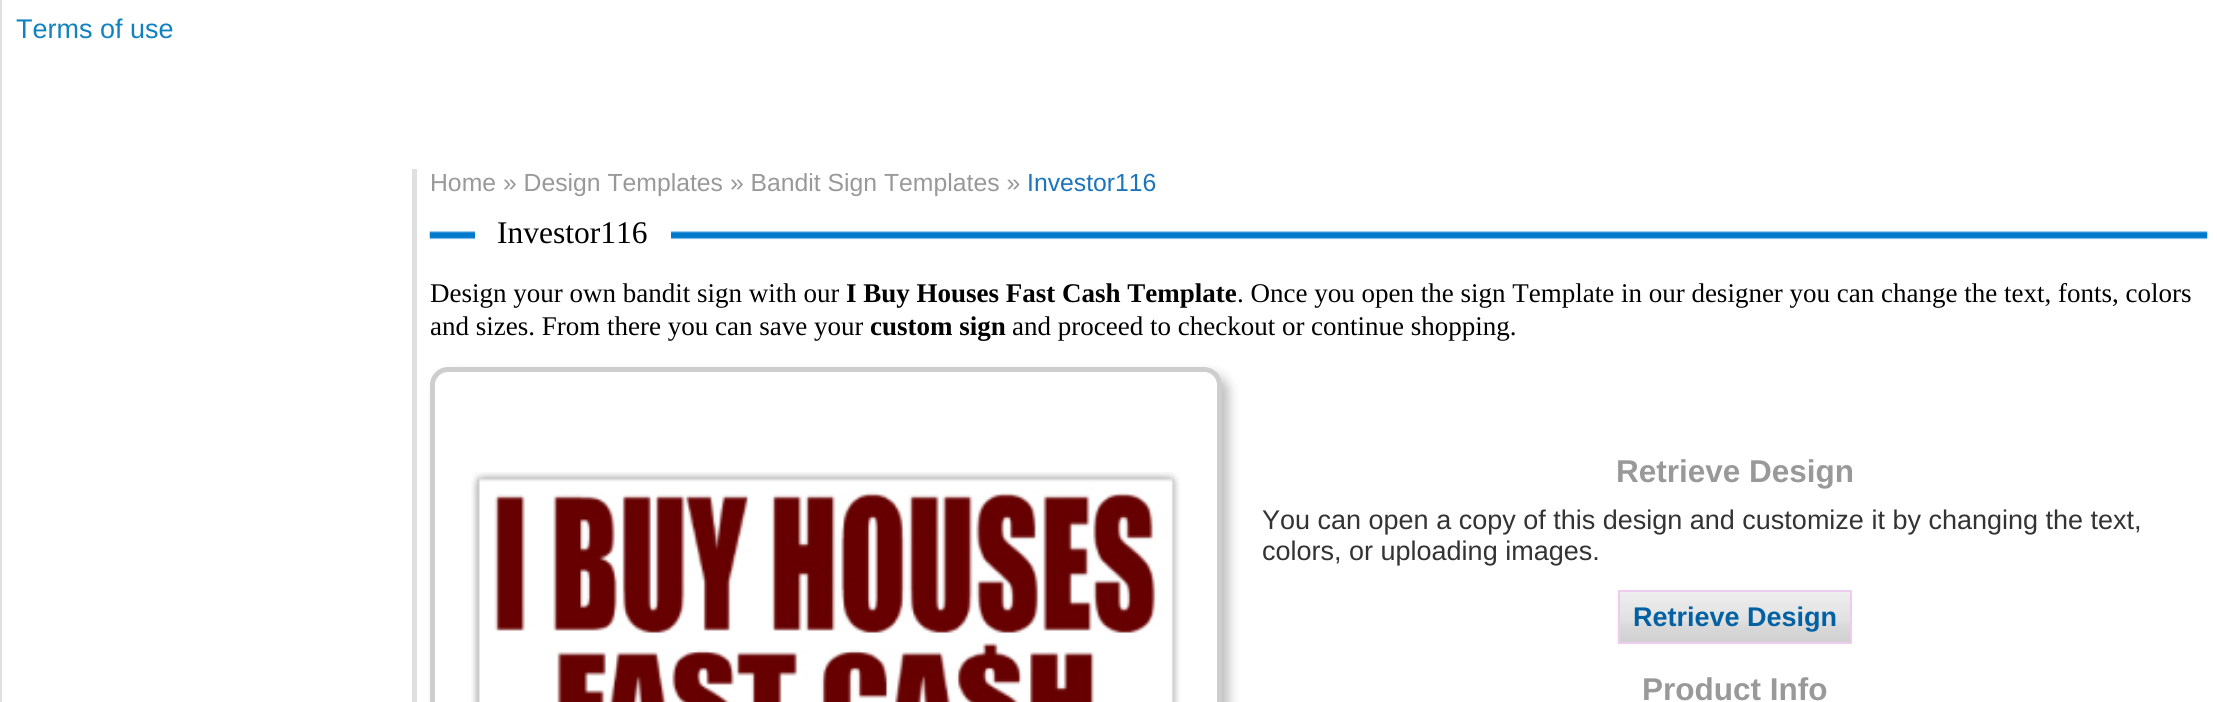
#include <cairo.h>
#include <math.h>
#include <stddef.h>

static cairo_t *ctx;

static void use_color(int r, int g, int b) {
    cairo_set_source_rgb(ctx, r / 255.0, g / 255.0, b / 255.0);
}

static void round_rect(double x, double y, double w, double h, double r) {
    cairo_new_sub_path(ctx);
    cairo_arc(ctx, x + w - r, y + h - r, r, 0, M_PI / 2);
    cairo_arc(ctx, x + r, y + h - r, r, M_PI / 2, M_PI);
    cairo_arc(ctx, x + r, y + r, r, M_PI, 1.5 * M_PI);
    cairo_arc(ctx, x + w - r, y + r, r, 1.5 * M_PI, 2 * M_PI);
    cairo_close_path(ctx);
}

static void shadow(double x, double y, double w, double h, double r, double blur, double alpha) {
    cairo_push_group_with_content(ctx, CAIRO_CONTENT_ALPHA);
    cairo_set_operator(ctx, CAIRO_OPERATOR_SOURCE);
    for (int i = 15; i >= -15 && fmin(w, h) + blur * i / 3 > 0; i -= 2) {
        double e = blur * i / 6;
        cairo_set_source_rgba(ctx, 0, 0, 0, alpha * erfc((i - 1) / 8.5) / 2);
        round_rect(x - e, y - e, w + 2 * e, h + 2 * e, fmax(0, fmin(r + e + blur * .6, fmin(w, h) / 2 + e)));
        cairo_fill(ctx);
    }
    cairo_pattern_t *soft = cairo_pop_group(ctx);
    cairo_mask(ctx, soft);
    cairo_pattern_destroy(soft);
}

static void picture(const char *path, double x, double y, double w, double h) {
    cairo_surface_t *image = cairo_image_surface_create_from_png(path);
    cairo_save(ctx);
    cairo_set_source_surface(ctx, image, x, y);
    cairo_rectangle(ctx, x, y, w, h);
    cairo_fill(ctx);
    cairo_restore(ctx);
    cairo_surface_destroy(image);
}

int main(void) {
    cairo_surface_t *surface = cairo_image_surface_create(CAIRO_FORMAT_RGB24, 2217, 702);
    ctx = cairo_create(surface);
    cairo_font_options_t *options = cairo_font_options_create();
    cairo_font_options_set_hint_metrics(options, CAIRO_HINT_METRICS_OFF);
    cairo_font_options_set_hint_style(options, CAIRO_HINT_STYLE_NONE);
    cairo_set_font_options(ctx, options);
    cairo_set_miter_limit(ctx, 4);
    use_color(255, 255, 255);
    cairo_paint(ctx);
    cairo_rectangle(ctx, 1, -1, 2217, 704);
    use_color(224, 224, 224);
    cairo_stroke(ctx);
    cairo_select_font_face(ctx, "Liberation Sans", CAIRO_FONT_SLANT_NORMAL, CAIRO_FONT_WEIGHT_NORMAL);
    cairo_set_font_size(ctx, 27);
    use_color(17, 130, 192);
    cairo_move_to(ctx, 16, 38);
    cairo_show_text(ctx, "Terms of use");
    use_color(224, 224, 224);
    cairo_rectangle(ctx, 412, 169, 5, 533);
    cairo_fill(ctx);
    cairo_set_font_size(ctx, 24.75);
    use_color(153, 153, 153);
    cairo_move_to(ctx, 430, 191);
    cairo_show_text(ctx, "Home » Design Templates » Bandit Sign Templates »");
    use_color(27, 117, 187);
    cairo_move_to(ctx, 1027, 191);
    cairo_show_text(ctx, "Investor116");
    picture("img1.png", 429, 231, 1779, 9);
    use_color(255, 255, 255);
    cairo_rectangle(ctx, 475, 231, 196, 9);
    cairo_fill(ctx);
    cairo_select_font_face(ctx, "Liberation Serif", CAIRO_FONT_SLANT_NORMAL, CAIRO_FONT_WEIGHT_NORMAL);
    cairo_set_font_size(ctx, 31.5);
    use_color(0, 0, 0);
    cairo_move_to(ctx, 497, 243);
    cairo_show_text(ctx, "Investor116");
    cairo_set_font_size(ctx, 27);
    cairo_move_to(ctx, 430, 302);
    cairo_show_text(ctx, "Design your own bandit sign with our");
    cairo_select_font_face(ctx, "Liberation Serif", CAIRO_FONT_SLANT_NORMAL, CAIRO_FONT_WEIGHT_BOLD);
    cairo_move_to(ctx, 846, 302);
    cairo_show_text(ctx, "I Buy Houses Fast Cash Template");
    cairo_select_font_face(ctx, "Liberation Serif", CAIRO_FONT_SLANT_NORMAL, CAIRO_FONT_WEIGHT_NORMAL);
    cairo_move_to(ctx, 1237, 302);
    cairo_show_text(ctx, ". Once you open the sign Template in our designer you can change the text, fonts, colors");
    cairo_move_to(ctx, 430, 335);
    cairo_show_text(ctx, "and sizes. From there you can save your");
    cairo_select_font_face(ctx, "Liberation Serif", CAIRO_FONT_SLANT_NORMAL, CAIRO_FONT_WEIGHT_BOLD);
    cairo_move_to(ctx, 870, 335);
    cairo_show_text(ctx, "custom sign");
    cairo_select_font_face(ctx, "Liberation Serif", CAIRO_FONT_SLANT_NORMAL, CAIRO_FONT_WEIGHT_NORMAL);
    cairo_move_to(ctx, 1012, 335);
    cairo_show_text(ctx, "and proceed to checkout or continue shopping.");
    cairo_save(ctx);
    cairo_set_fill_rule(ctx, CAIRO_FILL_RULE_EVEN_ODD);
    cairo_new_path(ctx);
    cairo_move_to(ctx, 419, 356);
    cairo_line_to(ctx, 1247, 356);
    cairo_line_to(ctx, 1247, 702);
    cairo_line_to(ctx, 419, 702);
    cairo_close_path(ctx);
    cairo_move_to(ctx, 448, 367);
    cairo_line_to(ctx, 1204, 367);
    cairo_curve_to(ctx, 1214, 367, 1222, 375, 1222, 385);
    cairo_line_to(ctx, 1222, 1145);
    cairo_curve_to(ctx, 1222, 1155, 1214, 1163, 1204, 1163);
    cairo_line_to(ctx, 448, 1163);
    cairo_curve_to(ctx, 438, 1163, 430, 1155, 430, 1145);
    cairo_line_to(ctx, 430, 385);
    cairo_curve_to(ctx, 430, 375, 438, 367, 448, 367);
    cairo_close_path(ctx);
    cairo_clip(ctx);
    use_color(191, 191, 191);
    shadow(437, 374, 792, 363, 18, 5.5, 1);
    cairo_restore(ctx);
    round_rect(432.5, 369.5, 787, 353, 15.5);
    use_color(206, 206, 206);
    cairo_set_line_width(ctx, 5);
    cairo_stroke(ctx);
    picture("img2.png", 471, 472, 709, 230);
    cairo_select_font_face(ctx, "Liberation Sans", CAIRO_FONT_SLANT_NORMAL, CAIRO_FONT_WEIGHT_BOLD);
    cairo_set_font_size(ctx, 31.5);
    use_color(153, 153, 153);
    cairo_move_to(ctx, 1616, 482);
    cairo_show_text(ctx, "Retrieve Design");
    cairo_select_font_face(ctx, "Liberation Sans", CAIRO_FONT_SLANT_NORMAL, CAIRO_FONT_WEIGHT_NORMAL);
    cairo_set_font_size(ctx, 27);
    use_color(51, 51, 51);
    cairo_move_to(ctx, 1262, 529);
    cairo_show_text(ctx, "You can open a copy of this design and customize it by changing the text,");
    cairo_move_to(ctx, 1262, 560);
    cairo_show_text(ctx, "colors, or uploading images.");
    picture("img3.png", 1617, 591, 233, 53);
    cairo_rectangle(ctx, 1619, 591, 232, 52);
    use_color(238, 204, 238);
    cairo_set_line_width(ctx, 2);
    cairo_stroke(ctx);
    cairo_select_font_face(ctx, "Liberation Sans", CAIRO_FONT_SLANT_NORMAL, CAIRO_FONT_WEIGHT_BOLD);
    use_color(2, 97, 163);
    cairo_move_to(ctx, 1633, 626);
    cairo_show_text(ctx, "Retrieve Design");
    cairo_set_font_size(ctx, 31.5);
    use_color(153, 153, 153);
    cairo_move_to(ctx, 1642, 700);
    cairo_show_text(ctx, "Product Info");
    cairo_surface_write_to_png(surface, "result.png");
    cairo_font_options_destroy(options);
    cairo_destroy(ctx);
    cairo_surface_destroy(surface);
    return 0;
}
